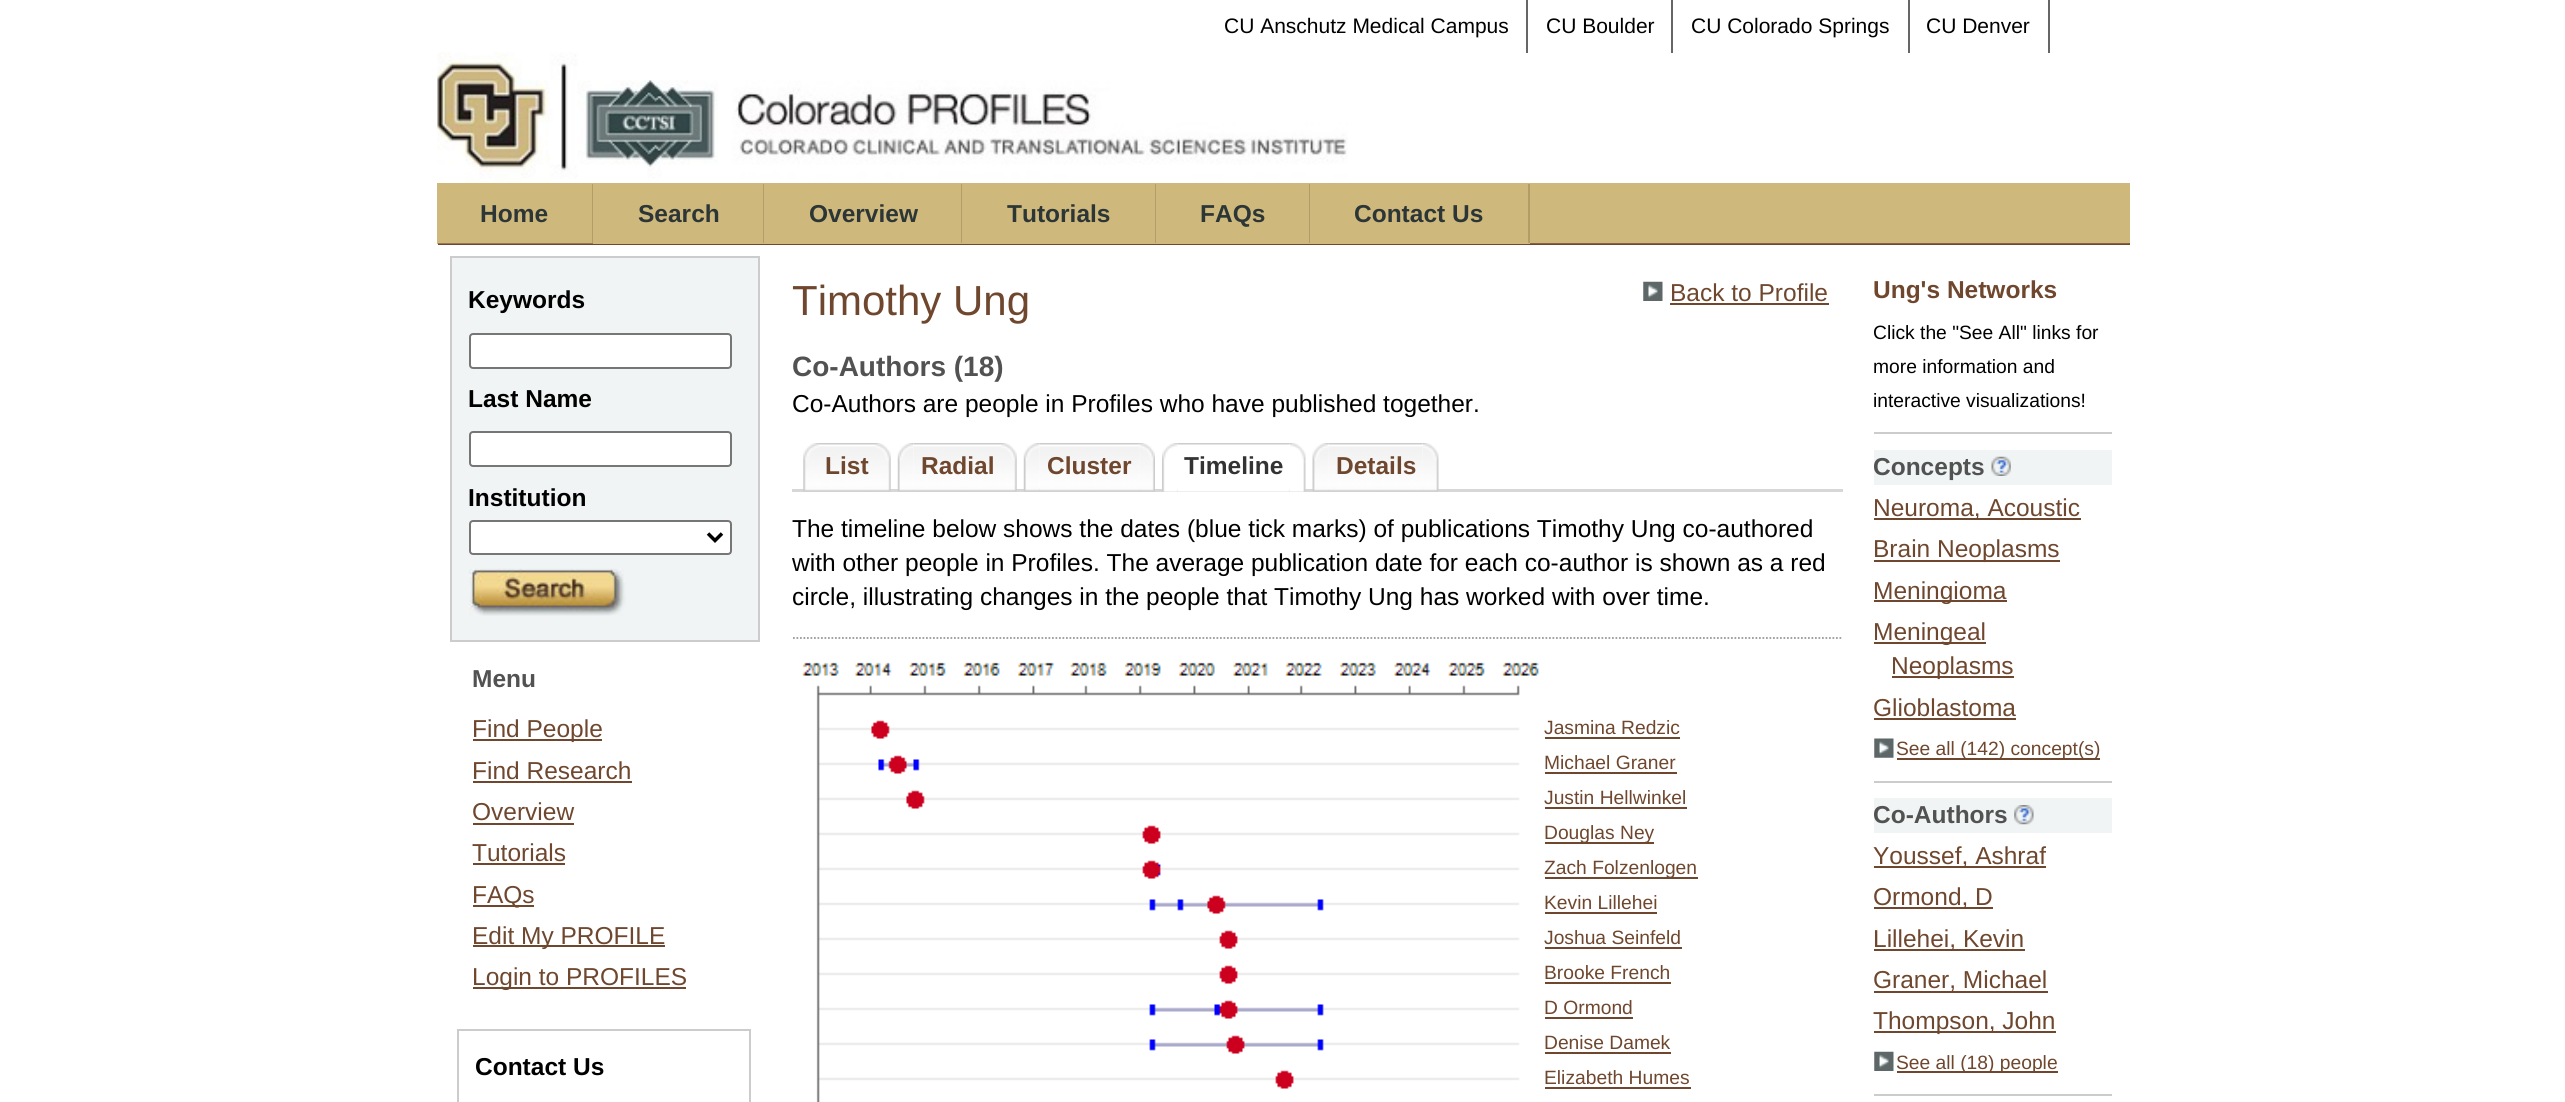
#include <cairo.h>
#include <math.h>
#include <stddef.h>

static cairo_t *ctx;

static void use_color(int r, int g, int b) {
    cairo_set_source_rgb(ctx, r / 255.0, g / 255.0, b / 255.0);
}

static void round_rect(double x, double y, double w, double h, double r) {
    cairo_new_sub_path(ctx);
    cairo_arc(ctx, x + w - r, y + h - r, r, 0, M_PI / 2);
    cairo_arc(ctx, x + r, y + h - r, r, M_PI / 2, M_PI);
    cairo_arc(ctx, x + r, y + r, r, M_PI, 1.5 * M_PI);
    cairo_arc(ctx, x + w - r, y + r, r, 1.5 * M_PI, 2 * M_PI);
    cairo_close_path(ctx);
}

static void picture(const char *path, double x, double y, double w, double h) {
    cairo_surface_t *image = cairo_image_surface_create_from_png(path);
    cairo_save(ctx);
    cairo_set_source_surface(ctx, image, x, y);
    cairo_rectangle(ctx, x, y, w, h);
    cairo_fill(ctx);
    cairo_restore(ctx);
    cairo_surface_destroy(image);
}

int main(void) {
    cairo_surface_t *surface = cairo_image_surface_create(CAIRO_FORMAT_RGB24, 2565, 1102);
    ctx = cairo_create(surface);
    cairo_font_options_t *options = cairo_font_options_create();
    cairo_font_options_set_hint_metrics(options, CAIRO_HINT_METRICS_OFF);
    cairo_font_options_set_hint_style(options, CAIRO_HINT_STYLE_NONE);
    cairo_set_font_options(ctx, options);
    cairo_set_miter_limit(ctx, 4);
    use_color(255, 255, 255);
    cairo_paint(ctx);
    use_color(102, 102, 102);
    cairo_rectangle(ctx, 1526, 0, 2, 53);
    cairo_fill(ctx);
    cairo_select_font_face(ctx, "Liberation Sans", CAIRO_FONT_SLANT_NORMAL, CAIRO_FONT_WEIGHT_NORMAL);
    cairo_set_font_size(ctx, 21);
    use_color(0, 0, 0);
    cairo_move_to(ctx, 1224, 33);
    cairo_show_text(ctx, "CU Anschutz Medical Campus");
    use_color(102, 102, 102);
    cairo_rectangle(ctx, 1671, 0, 2, 53);
    cairo_fill(ctx);
    use_color(0, 0, 0);
    cairo_move_to(ctx, 1546, 33);
    cairo_show_text(ctx, "CU Boulder");
    use_color(102, 102, 102);
    cairo_rectangle(ctx, 1908, 0, 2, 53);
    cairo_fill(ctx);
    use_color(0, 0, 0);
    cairo_move_to(ctx, 1691, 33);
    cairo_show_text(ctx, "CU Colorado Springs");
    use_color(102, 102, 102);
    cairo_rectangle(ctx, 2048, 0, 2, 53);
    cairo_fill(ctx);
    use_color(0, 0, 0);
    cairo_move_to(ctx, 1926, 33);
    cairo_show_text(ctx, "CU Denver");
    picture("img1.png", 437, 52, 911, 131);
    use_color(207, 184, 124);
    cairo_rectangle(ctx, 437, 183, 1693, 61);
    cairo_fill(ctx);
    use_color(111, 71, 46);
    cairo_rectangle(ctx, 438, 243, 1692, 2);
    cairo_fill(ctx);
    picture("img2.png", 438, 243, 1692, 1);
    picture("img3.png", 438, 243, 155, 1);
    use_color(179, 156, 104);
    cairo_rectangle(ctx, 592, 184, 1, 59);
    cairo_fill(ctx);
    cairo_select_font_face(ctx, "Liberation Sans", CAIRO_FONT_SLANT_NORMAL, CAIRO_FONT_WEIGHT_BOLD);
    cairo_set_font_size(ctx, 24.5);
    use_color(45, 54, 54);
    cairo_move_to(ctx, 480, 222);
    cairo_show_text(ctx, "Home");
    use_color(207, 184, 124);
    cairo_rectangle(ctx, 593, 243, 937, 1);
    cairo_fill(ctx);
    use_color(179, 156, 104);
    cairo_rectangle(ctx, 763, 184, 1, 59);
    cairo_fill(ctx);
    use_color(45, 54, 54);
    cairo_move_to(ctx, 638, 222);
    cairo_show_text(ctx, "Search");
    use_color(179, 156, 104);
    cairo_rectangle(ctx, 961, 184, 1, 59);
    cairo_fill(ctx);
    use_color(45, 54, 54);
    cairo_move_to(ctx, 809, 222);
    cairo_show_text(ctx, "Overview");
    use_color(179, 156, 104);
    cairo_rectangle(ctx, 1155, 184, 1, 59);
    cairo_fill(ctx);
    use_color(45, 54, 54);
    cairo_move_to(ctx, 1007, 222);
    cairo_show_text(ctx, "Tutorials");
    use_color(179, 156, 104);
    cairo_rectangle(ctx, 1309, 184, 1, 59);
    cairo_fill(ctx);
    use_color(45, 54, 54);
    cairo_move_to(ctx, 1200, 222);
    cairo_show_text(ctx, "FAQs");
    use_color(179, 156, 104);
    cairo_rectangle(ctx, 1528, 184, 2, 59);
    cairo_fill(ctx);
    use_color(45, 54, 54);
    cairo_move_to(ctx, 1354, 222);
    cairo_show_text(ctx, "Contact Us");
    use_color(240, 244, 244);
    cairo_rectangle(ctx, 451, 257, 308, 384);
    cairo_fill_preserve(ctx);
    use_color(204, 204, 204);
    cairo_stroke(ctx);
    use_color(0, 0, 0);
    cairo_move_to(ctx, 468, 308);
    cairo_show_text(ctx, "Keywords");
    use_color(255, 255, 255);
    round_rect(470, 334, 261, 34, 3);
    cairo_fill_preserve(ctx);
    use_color(118, 118, 118);
    cairo_stroke(ctx);
    use_color(0, 0, 0);
    cairo_move_to(ctx, 468, 407);
    cairo_show_text(ctx, "Last Name");
    use_color(255, 255, 255);
    round_rect(470, 432, 261, 34, 3);
    cairo_fill_preserve(ctx);
    use_color(118, 118, 118);
    cairo_stroke(ctx);
    use_color(0, 0, 0);
    cairo_move_to(ctx, 468, 506);
    cairo_show_text(ctx, "Institution");
    use_color(255, 255, 255);
    round_rect(470, 521, 261, 33, 3);
    cairo_fill_preserve(ctx);
    use_color(118, 118, 118);
    cairo_stroke(ctx);
    cairo_new_path(ctx);
    cairo_move_to(ctx, 708, 533.5);
    cairo_line_to(ctx, 715, 540.5);
    cairo_line_to(ctx, 722, 533.5);
    use_color(0, 0, 0);
    cairo_set_line_width(ctx, 3.5);
    cairo_stroke(ctx);
    picture("img4.png", 469, 568, 157, 48);
    use_color(82, 82, 82);
    cairo_move_to(ctx, 472, 687);
    cairo_show_text(ctx, "Menu");
    use_color(111, 71, 46);
    cairo_rectangle(ctx, 473, 739, 129, 2);
    cairo_fill(ctx);
    cairo_select_font_face(ctx, "Liberation Sans", CAIRO_FONT_SLANT_NORMAL, CAIRO_FONT_WEIGHT_NORMAL);
    cairo_move_to(ctx, 472, 737);
    cairo_show_text(ctx, "Find People");
    cairo_move_to(ctx, 472, 779);
    cairo_show_text(ctx, "Find Research");
    cairo_rectangle(ctx, 473, 781, 159, 2);
    cairo_fill(ctx);
    cairo_move_to(ctx, 472, 820);
    cairo_show_text(ctx, "Overview");
    cairo_rectangle(ctx, 473, 823, 101, 2);
    cairo_fill(ctx);
    cairo_move_to(ctx, 472, 861);
    cairo_show_text(ctx, "Tutorials");
    cairo_rectangle(ctx, 473, 863, 92, 2);
    cairo_fill(ctx);
    cairo_rectangle(ctx, 473, 905, 61, 2);
    cairo_fill(ctx);
    cairo_move_to(ctx, 472, 903);
    cairo_show_text(ctx, "FAQs");
    cairo_rectangle(ctx, 473, 945, 192, 2);
    cairo_fill(ctx);
    cairo_move_to(ctx, 472, 944);
    cairo_show_text(ctx, "Edit My PROFILE");
    cairo_rectangle(ctx, 473, 987, 213, 2);
    cairo_fill(ctx);
    cairo_move_to(ctx, 472, 985);
    cairo_show_text(ctx, "Login to PROFILES");
    cairo_rectangle(ctx, 458, 1030, 292, 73);
    use_color(204, 204, 204);
    cairo_set_line_width(ctx, 2);
    cairo_stroke(ctx);
    cairo_select_font_face(ctx, "Liberation Sans", CAIRO_FONT_SLANT_NORMAL, CAIRO_FONT_WEIGHT_BOLD);
    use_color(0, 0, 0);
    cairo_move_to(ctx, 475, 1075);
    cairo_show_text(ctx, "Contact Us");
    cairo_select_font_face(ctx, "Liberation Sans", CAIRO_FONT_SLANT_NORMAL, CAIRO_FONT_WEIGHT_NORMAL);
    cairo_set_font_size(ctx, 42);
    use_color(111, 71, 46);
    cairo_move_to(ctx, 792, 315);
    cairo_show_text(ctx, "Timothy Ung");
    picture("img5.png", 1643, 281, 20, 20);
    cairo_set_font_size(ctx, 24.5);
    cairo_move_to(ctx, 1670, 301);
    cairo_show_text(ctx, "Back to Profile");
    cairo_rectangle(ctx, 1670, 303, 159, 2);
    cairo_fill(ctx);
    cairo_select_font_face(ctx, "Liberation Sans", CAIRO_FONT_SLANT_NORMAL, CAIRO_FONT_WEIGHT_BOLD);
    cairo_set_font_size(ctx, 28);
    use_color(82, 82, 82);
    cairo_move_to(ctx, 792, 376);
    cairo_show_text(ctx, "Co-Authors (18)");
    cairo_select_font_face(ctx, "Liberation Sans", CAIRO_FONT_SLANT_NORMAL, CAIRO_FONT_WEIGHT_NORMAL);
    cairo_set_font_size(ctx, 24.5);
    use_color(0, 0, 0);
    cairo_move_to(ctx, 792, 412);
    cairo_show_text(ctx, "Co-Authors are people in Profiles who have published together.");
    use_color(215, 215, 215);
    cairo_rectangle(ctx, 792, 489, 1051, 3);
    cairo_fill(ctx);
    picture("img6.png", 803, 443, 16, 49);
    picture("img7.png", 819, 443, 56, 49);
    cairo_select_font_face(ctx, "Liberation Sans", CAIRO_FONT_SLANT_NORMAL, CAIRO_FONT_WEIGHT_BOLD);
    use_color(111, 71, 46);
    cairo_move_to(ctx, 825, 474);
    cairo_show_text(ctx, "List");
    picture("img8.png", 875, 443, 16, 49);
    picture("img9.png", 897, 443, 17, 49);
    picture("img10.png", 913, 443, 88, 49);
    cairo_move_to(ctx, 921, 474);
    cairo_show_text(ctx, "Radial");
    picture("img8.png", 1001, 443, 16, 49);
    picture("img11.png", 1023, 443, 17, 49);
    picture("img12.png", 1039, 443, 101, 49);
    cairo_move_to(ctx, 1047, 474);
    cairo_show_text(ctx, "Cluster");
    picture("img13.png", 1139, 443, 16, 49);
    picture("img14.png", 1162, 443, 16, 49);
    picture("img15.png", 1178, 443, 112, 49);
    use_color(51, 51, 51);
    cairo_move_to(ctx, 1184, 474);
    cairo_show_text(ctx, "Timeline");
    picture("img16.png", 1290, 443, 16, 49);
    picture("img17.png", 1312, 443, 17, 49);
    picture("img18.png", 1328, 443, 95, 49);
    use_color(111, 71, 46);
    cairo_move_to(ctx, 1336, 474);
    cairo_show_text(ctx, "Details");
    picture("img19.png", 1423, 443, 16, 49);
    cairo_new_path(ctx);
    cairo_move_to(ctx, 793, 638);
    cairo_line_to(ctx, 1843, 638);
    use_color(153, 153, 153);
    cairo_set_line_width(ctx, 1.8);
    cairo_set_dash(ctx, (double[]){1.75, 1.75}, 2, 0);
    cairo_stroke(ctx);
    cairo_select_font_face(ctx, "Liberation Sans", CAIRO_FONT_SLANT_NORMAL, CAIRO_FONT_WEIGHT_NORMAL);
    use_color(0, 0, 0);
    cairo_move_to(ctx, 792, 537);
    cairo_show_text(ctx, "The timeline below shows the dates (blue tick marks) of publications Timothy Ung co-authored");
    cairo_move_to(ctx, 792, 571);
    cairo_show_text(ctx, "with other people in Profiles. The average publication date for each co-author is shown as a red");
    cairo_move_to(ctx, 792, 605);
    cairo_show_text(ctx, "circle, illustrating changes in the people that Timothy Ung has worked with over time.");
    picture("img20.png", 802, 662, 737, 440);
    cairo_set_font_size(ctx, 19.25);
    use_color(111, 71, 46);
    cairo_move_to(ctx, 1544, 734);
    cairo_show_text(ctx, "Jasmina Redzic");
    cairo_rectangle(ctx, 1545, 737, 135, 2);
    cairo_fill(ctx);
    cairo_move_to(ctx, 1544, 769);
    cairo_show_text(ctx, "Michael Graner");
    cairo_rectangle(ctx, 1545, 772, 132, 2);
    cairo_fill(ctx);
    cairo_move_to(ctx, 1544, 804);
    cairo_show_text(ctx, "Justin Hellwinkel");
    cairo_rectangle(ctx, 1545, 807, 142, 2);
    cairo_fill(ctx);
    cairo_rectangle(ctx, 1545, 842, 109, 2);
    cairo_fill(ctx);
    cairo_move_to(ctx, 1544, 839);
    cairo_show_text(ctx, "Douglas Ney");
    cairo_rectangle(ctx, 1545, 877, 153, 2);
    cairo_fill(ctx);
    cairo_move_to(ctx, 1544, 874);
    cairo_show_text(ctx, "Zach Folzenlogen");
    cairo_move_to(ctx, 1544, 909);
    cairo_show_text(ctx, "Kevin Lillehei");
    cairo_rectangle(ctx, 1545, 912, 112, 2);
    cairo_fill(ctx);
    cairo_move_to(ctx, 1544, 944);
    cairo_show_text(ctx, "Joshua Seinfeld");
    cairo_rectangle(ctx, 1545, 947, 137, 2);
    cairo_fill(ctx);
    cairo_move_to(ctx, 1544, 979);
    cairo_show_text(ctx, "Brooke French");
    cairo_rectangle(ctx, 1545, 982, 126, 2);
    cairo_fill(ctx);
    cairo_move_to(ctx, 1544, 1014);
    cairo_show_text(ctx, "D Ormond");
    cairo_rectangle(ctx, 1545, 1017, 88, 2);
    cairo_fill(ctx);
    cairo_move_to(ctx, 1544, 1049);
    cairo_show_text(ctx, "Denise Damek");
    cairo_rectangle(ctx, 1545, 1052, 126, 2);
    cairo_fill(ctx);
    cairo_move_to(ctx, 1544, 1084);
    cairo_show_text(ctx, "Elizabeth Humes");
    cairo_rectangle(ctx, 1545, 1087, 146, 2);
    cairo_fill(ctx);
    cairo_select_font_face(ctx, "Liberation Sans", CAIRO_FONT_SLANT_NORMAL, CAIRO_FONT_WEIGHT_BOLD);
    cairo_set_font_size(ctx, 24.5);
    cairo_move_to(ctx, 1873, 298);
    cairo_show_text(ctx, "Ung's Networks");
    cairo_select_font_face(ctx, "Liberation Sans", CAIRO_FONT_SLANT_NORMAL, CAIRO_FONT_WEIGHT_NORMAL);
    cairo_set_font_size(ctx, 19.25);
    use_color(0, 0, 0);
    cairo_move_to(ctx, 1873, 339);
    cairo_show_text(ctx, "Click the \"See All\" links for");
    cairo_move_to(ctx, 1873, 373);
    cairo_show_text(ctx, "more information and");
    cairo_move_to(ctx, 1873, 407);
    cairo_show_text(ctx, "interactive visualizations!");
    use_color(204, 204, 204);
    cairo_rectangle(ctx, 1874, 432, 238, 2);
    cairo_fill(ctx);
    use_color(240, 244, 244);
    cairo_rectangle(ctx, 1874, 450, 238, 35);
    cairo_fill(ctx);
    cairo_select_font_face(ctx, "Liberation Sans", CAIRO_FONT_SLANT_NORMAL, CAIRO_FONT_WEIGHT_BOLD);
    cairo_set_font_size(ctx, 24.5);
    use_color(82, 82, 82);
    cairo_move_to(ctx, 1873, 475);
    cairo_show_text(ctx, "Concepts");
    picture("img21.png", 1991, 456, 20, 20);
    use_color(111, 71, 46);
    cairo_rectangle(ctx, 1874, 518, 207, 2);
    cairo_fill(ctx);
    cairo_select_font_face(ctx, "Liberation Sans", CAIRO_FONT_SLANT_NORMAL, CAIRO_FONT_WEIGHT_NORMAL);
    cairo_move_to(ctx, 1873, 516);
    cairo_show_text(ctx, "Neuroma, Acoustic");
    cairo_rectangle(ctx, 1874, 560, 186, 2);
    cairo_fill(ctx);
    cairo_move_to(ctx, 1873, 557);
    cairo_show_text(ctx, "Brain Neoplasms");
    cairo_rectangle(ctx, 1874, 600, 133, 2);
    cairo_fill(ctx);
    cairo_move_to(ctx, 1873, 599);
    cairo_show_text(ctx, "Meningioma");
    cairo_rectangle(ctx, 1874, 642, 112, 2);
    cairo_fill(ctx);
    cairo_move_to(ctx, 1873, 640);
    cairo_show_text(ctx, "Meningeal");
    cairo_rectangle(ctx, 1892, 676, 122, 2);
    cairo_fill(ctx);
    cairo_move_to(ctx, 1891, 674);
    cairo_show_text(ctx, "Neoplasms");
    cairo_move_to(ctx, 1873, 716);
    cairo_show_text(ctx, "Glioblastoma");
    cairo_rectangle(ctx, 1874, 718, 142, 2);
    cairo_fill(ctx);
    picture("img22.png", 1874, 738, 20, 20);
    cairo_rectangle(ctx, 1897, 758, 203, 2);
    cairo_fill(ctx);
    cairo_set_font_size(ctx, 19.25);
    cairo_move_to(ctx, 1896, 755);
    cairo_show_text(ctx, "See all (142) concept(s)");
    use_color(204, 204, 204);
    cairo_rectangle(ctx, 1874, 781, 238, 2);
    cairo_fill(ctx);
    use_color(240, 244, 244);
    cairo_rectangle(ctx, 1874, 798, 238, 35);
    cairo_fill(ctx);
    cairo_select_font_face(ctx, "Liberation Sans", CAIRO_FONT_SLANT_NORMAL, CAIRO_FONT_WEIGHT_BOLD);
    cairo_set_font_size(ctx, 24.5);
    use_color(82, 82, 82);
    cairo_move_to(ctx, 1873, 823);
    cairo_show_text(ctx, "Co-Authors");
    picture("img23.png", 2014, 805, 20, 20);
    use_color(111, 71, 46);
    cairo_rectangle(ctx, 1874, 866, 172, 2);
    cairo_fill(ctx);
    cairo_select_font_face(ctx, "Liberation Sans", CAIRO_FONT_SLANT_NORMAL, CAIRO_FONT_WEIGHT_NORMAL);
    cairo_move_to(ctx, 1873, 864);
    cairo_show_text(ctx, "Youssef, Ashraf");
    cairo_rectangle(ctx, 1874, 907, 119, 2);
    cairo_fill(ctx);
    cairo_move_to(ctx, 1873, 905);
    cairo_show_text(ctx, "Ormond, D");
    cairo_rectangle(ctx, 1874, 949, 151, 2);
    cairo_fill(ctx);
    cairo_move_to(ctx, 1873, 947);
    cairo_show_text(ctx, "Lillehei, Kevin");
    cairo_rectangle(ctx, 1874, 991, 174, 2);
    cairo_fill(ctx);
    cairo_move_to(ctx, 1873, 988);
    cairo_show_text(ctx, "Graner, Michael");
    cairo_rectangle(ctx, 1874, 1031, 182, 2);
    cairo_fill(ctx);
    cairo_move_to(ctx, 1873, 1029);
    cairo_show_text(ctx, "Thompson, John");
    picture("img24.png", 1874, 1051, 20, 20);
    cairo_rectangle(ctx, 1897, 1071, 161, 2);
    cairo_fill(ctx);
    cairo_set_font_size(ctx, 19.25);
    cairo_move_to(ctx, 1896, 1069);
    cairo_show_text(ctx, "See all (18) people");
    use_color(204, 204, 204);
    cairo_rectangle(ctx, 1874, 1094, 238, 2);
    cairo_fill(ctx);
    cairo_surface_write_to_png(surface, "result.png");
    cairo_font_options_destroy(options);
    cairo_destroy(ctx);
    cairo_surface_destroy(surface);
    return 0;
}
